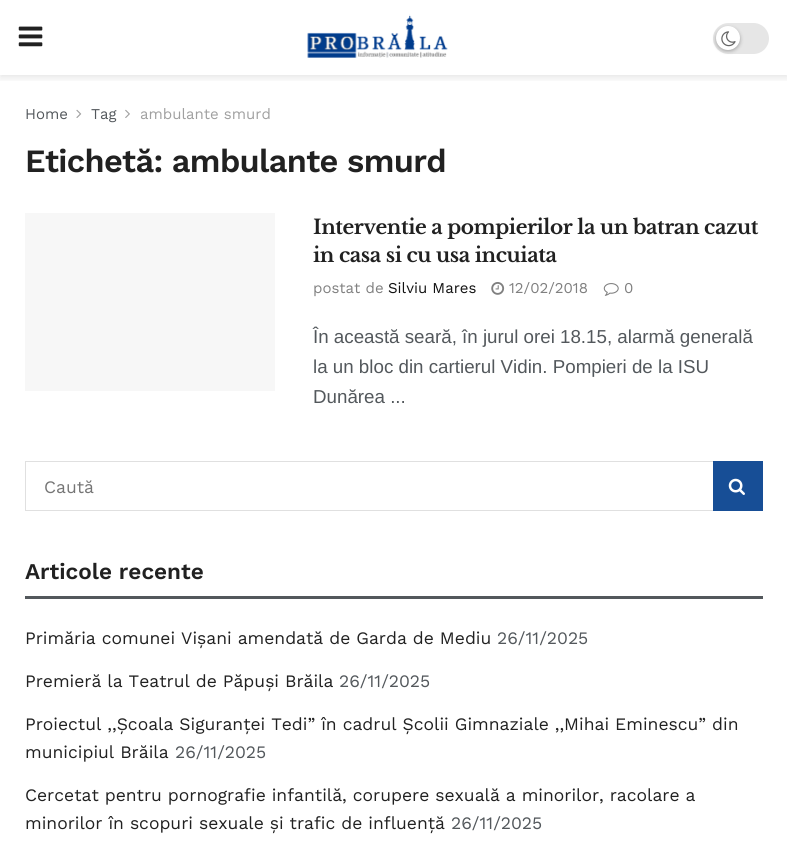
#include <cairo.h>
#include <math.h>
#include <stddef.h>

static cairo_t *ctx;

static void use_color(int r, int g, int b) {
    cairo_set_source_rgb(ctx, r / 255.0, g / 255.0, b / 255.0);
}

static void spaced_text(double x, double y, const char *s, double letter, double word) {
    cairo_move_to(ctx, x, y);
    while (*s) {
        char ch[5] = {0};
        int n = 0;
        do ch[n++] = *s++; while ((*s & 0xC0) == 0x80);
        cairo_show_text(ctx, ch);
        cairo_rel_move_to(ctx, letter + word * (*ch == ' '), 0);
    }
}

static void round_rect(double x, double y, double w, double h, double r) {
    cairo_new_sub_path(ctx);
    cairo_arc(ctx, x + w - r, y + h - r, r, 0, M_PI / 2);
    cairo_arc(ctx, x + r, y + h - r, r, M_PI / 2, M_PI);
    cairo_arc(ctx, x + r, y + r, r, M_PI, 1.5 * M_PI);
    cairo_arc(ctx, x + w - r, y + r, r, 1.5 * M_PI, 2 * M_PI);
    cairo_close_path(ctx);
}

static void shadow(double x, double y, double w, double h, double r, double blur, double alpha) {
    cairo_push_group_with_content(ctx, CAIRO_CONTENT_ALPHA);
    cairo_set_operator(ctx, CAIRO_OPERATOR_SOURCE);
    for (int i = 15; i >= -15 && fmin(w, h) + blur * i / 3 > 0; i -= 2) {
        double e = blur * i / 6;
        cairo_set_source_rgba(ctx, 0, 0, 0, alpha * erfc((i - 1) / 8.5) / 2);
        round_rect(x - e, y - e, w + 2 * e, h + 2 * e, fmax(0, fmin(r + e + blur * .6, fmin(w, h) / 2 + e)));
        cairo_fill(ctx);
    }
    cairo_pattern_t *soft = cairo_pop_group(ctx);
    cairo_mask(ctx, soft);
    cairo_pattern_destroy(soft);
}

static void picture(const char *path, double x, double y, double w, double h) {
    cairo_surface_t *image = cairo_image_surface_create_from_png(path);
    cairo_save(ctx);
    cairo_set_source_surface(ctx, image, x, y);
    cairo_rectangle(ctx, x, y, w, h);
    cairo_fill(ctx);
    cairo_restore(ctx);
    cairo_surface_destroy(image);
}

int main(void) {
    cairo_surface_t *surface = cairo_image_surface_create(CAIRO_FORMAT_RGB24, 787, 842);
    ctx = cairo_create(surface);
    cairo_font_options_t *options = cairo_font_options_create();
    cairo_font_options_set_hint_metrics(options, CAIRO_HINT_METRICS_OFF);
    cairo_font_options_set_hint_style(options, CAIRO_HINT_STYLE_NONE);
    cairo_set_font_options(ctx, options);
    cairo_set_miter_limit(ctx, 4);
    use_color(255, 255, 255);
    cairo_paint(ctx);
    cairo_save(ctx);
    cairo_rectangle(ctx, 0, 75, 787, 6);
    cairo_clip(ctx);
    use_color(0, 0, 0);
    shadow(0, 3, 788, 75, 0, 4, 0.1);
    cairo_restore(ctx);
    picture("img1.png", 18, 26, 25, 21);
    picture("img2.png", 307, 14, 141, 44);
    use_color(230, 230, 230);
    round_rect(713, 23, 56, 31, 15.5);
    cairo_fill(ctx);
    use_color(0, 0, 0);
    shadow(716, 28, 24, 23, 11.5, 2, 0.3);
    use_color(255, 255, 255);
    cairo_arc(ctx, 728, 38, 12, 0, 2 * M_PI);
    cairo_fill(ctx);
    picture("img3.png", 721, 31, 15, 16);
    cairo_select_font_face(ctx, "Work Sans", CAIRO_FONT_SLANT_NORMAL, CAIRO_FONT_WEIGHT_NORMAL);
    cairo_set_font_size(ctx, 15);
    use_color(83, 88, 92);
    cairo_move_to(ctx, 25, 119);
    cairo_show_text(ctx, "Home");
    picture("img4.png", 76, 109, 6, 9);
    cairo_move_to(ctx, 91, 119);
    cairo_show_text(ctx, "Tag");
    picture("img5.png", 125, 109, 5, 9);
    use_color(160, 160, 160);
    cairo_move_to(ctx, 140, 119);
    cairo_show_text(ctx, "ambulante smurd");
    cairo_select_font_face(ctx, "Work Sans SemiBold", CAIRO_FONT_SLANT_NORMAL, CAIRO_FONT_WEIGHT_NORMAL);
    cairo_set_font_size(ctx, 32.5);
    use_color(33, 33, 33);
    spaced_text(25, 172, "Etichetă: ambulante smurd", -0.65, 0);
    use_color(247, 247, 247);
    cairo_rectangle(ctx, 25, 213, 250, 178);
    cairo_fill(ctx);
    cairo_select_font_face(ctx, "Libre Baskerville", CAIRO_FONT_SLANT_NORMAL, CAIRO_FONT_WEIGHT_BOLD);
    cairo_set_font_size(ctx, 20);
    use_color(33, 33, 33);
    spaced_text(313, 234, "Interventie a pompierilor la un batran cazut", -0.4, 0);
    spaced_text(313, 262, "in casa si cu usa incuiata", -0.4, 0);
    cairo_select_font_face(ctx, "Work Sans", CAIRO_FONT_SLANT_NORMAL, CAIRO_FONT_WEIGHT_NORMAL);
    cairo_set_font_size(ctx, 15);
    use_color(128, 128, 128);
    cairo_move_to(ctx, 313, 293);
    cairo_show_text(ctx, "postat de");
    use_color(17, 17, 17);
    cairo_move_to(ctx, 388, 293);
    cairo_show_text(ctx, "Silviu Mares");
    picture("img6.png", 491, 282, 14, 13);
    use_color(128, 128, 128);
    cairo_move_to(ctx, 509, 293);
    cairo_show_text(ctx, "12/02/2018");
    picture("img7.png", 603, 283, 16, 13);
    cairo_move_to(ctx, 624, 293);
    cairo_show_text(ctx, "0");
    cairo_select_font_face(ctx, "Liberation Sans", CAIRO_FONT_SLANT_NORMAL, CAIRO_FONT_WEIGHT_NORMAL);
    cairo_set_font_size(ctx, 18.75);
    use_color(83, 88, 92);
    cairo_move_to(ctx, 313, 343);
    cairo_show_text(ctx, "În această seară, în jurul orei 18.15, alarmă generală");
    cairo_move_to(ctx, 313, 373);
    cairo_show_text(ctx, "la un bloc din cartierul Vidin. Pompieri de la ISU");
    cairo_move_to(ctx, 313, 403);
    cairo_show_text(ctx, "Dunărea ...");
    cairo_rectangle(ctx, 25.5, 461.5, 737, 49);
    use_color(224, 224, 224);
    cairo_set_line_width(ctx, 1);
    cairo_stroke(ctx);
    cairo_select_font_face(ctx, "Work Sans", CAIRO_FONT_SLANT_NORMAL, CAIRO_FONT_WEIGHT_NORMAL);
    cairo_set_font_size(ctx, 17.5);
    use_color(117, 117, 117);
    cairo_move_to(ctx, 44, 493);
    cairo_show_text(ctx, "Caută");
    use_color(23, 78, 150);
    cairo_rectangle(ctx, 713, 461, 50, 50);
    cairo_fill(ctx);
    picture("img8.png", 728, 478, 17, 17);
    use_color(83, 88, 92);
    cairo_rectangle(ctx, 25, 596, 738, 3);
    cairo_fill(ctx);
    cairo_select_font_face(ctx, "Work Sans SemiBold", CAIRO_FONT_SLANT_NORMAL, CAIRO_FONT_WEIGHT_NORMAL);
    cairo_set_font_size(ctx, 22.5);
    use_color(33, 33, 33);
    cairo_move_to(ctx, 25, 579);
    cairo_show_text(ctx, "Articole recente");
    cairo_select_font_face(ctx, "Work Sans", CAIRO_FONT_SLANT_NORMAL, CAIRO_FONT_WEIGHT_NORMAL);
    cairo_set_font_size(ctx, 17.5);
    cairo_move_to(ctx, 25, 644);
    cairo_show_text(ctx, "Primăria comunei Vișani amendată de Garda de Mediu");
    use_color(83, 88, 92);
    cairo_move_to(ctx, 497, 644);
    cairo_show_text(ctx, "26/11/2025");
    use_color(33, 33, 33);
    cairo_move_to(ctx, 25, 687);
    cairo_show_text(ctx, "Premieră la Teatrul de Păpuși Brăila");
    use_color(83, 88, 92);
    cairo_move_to(ctx, 339, 687);
    cairo_show_text(ctx, "26/11/2025");
    use_color(33, 33, 33);
    cairo_move_to(ctx, 25, 730);
    cairo_show_text(ctx, "Proiectul ,,Școala Siguranței Tedi” în cadrul Școlii Gimnaziale ,,Mihai Eminescu” din");
    cairo_move_to(ctx, 25, 758);
    cairo_show_text(ctx, "municipiul Brăila");
    use_color(83, 88, 92);
    cairo_move_to(ctx, 175, 758);
    cairo_show_text(ctx, "26/11/2025");
    use_color(33, 33, 33);
    cairo_move_to(ctx, 25, 801);
    cairo_show_text(ctx, "Cercetat pentru pornografie infantilă, corupere sexuală a minorilor, racolare a");
    cairo_move_to(ctx, 25, 829);
    cairo_show_text(ctx, "minorilor în scopuri sexuale și trafic de influență");
    use_color(83, 88, 92);
    cairo_move_to(ctx, 451, 829);
    cairo_show_text(ctx, "26/11/2025");
    cairo_surface_write_to_png(surface, "result.png");
    cairo_font_options_destroy(options);
    cairo_destroy(ctx);
    cairo_surface_destroy(surface);
    return 0;
}
